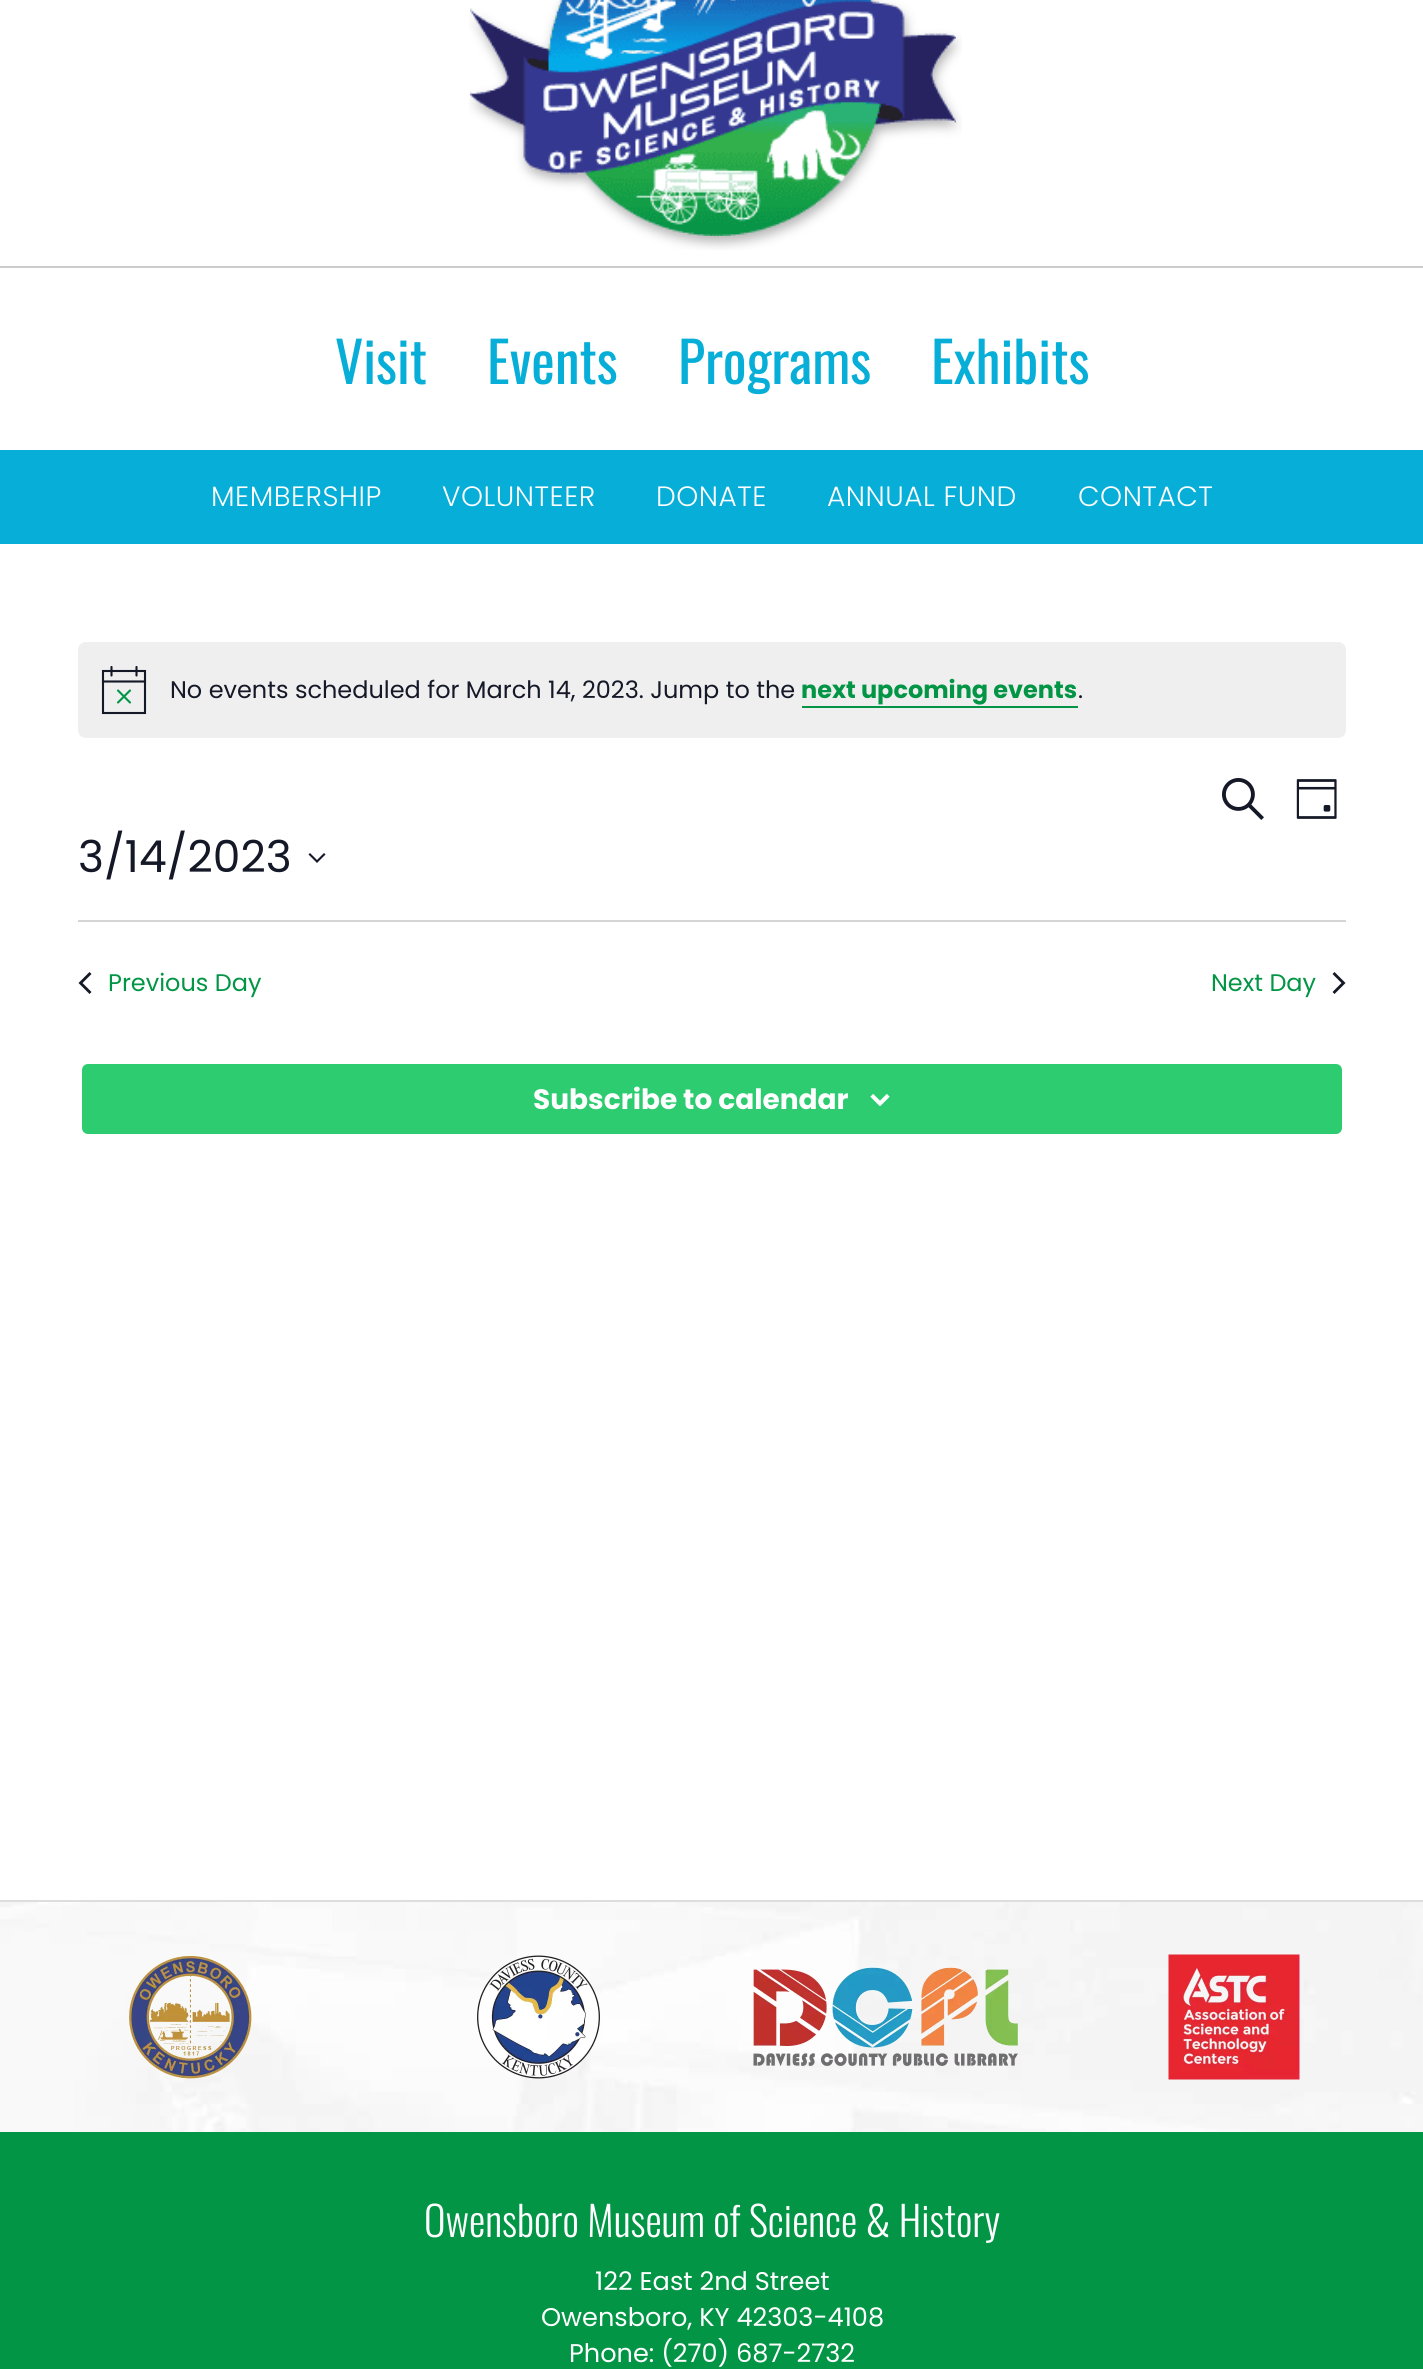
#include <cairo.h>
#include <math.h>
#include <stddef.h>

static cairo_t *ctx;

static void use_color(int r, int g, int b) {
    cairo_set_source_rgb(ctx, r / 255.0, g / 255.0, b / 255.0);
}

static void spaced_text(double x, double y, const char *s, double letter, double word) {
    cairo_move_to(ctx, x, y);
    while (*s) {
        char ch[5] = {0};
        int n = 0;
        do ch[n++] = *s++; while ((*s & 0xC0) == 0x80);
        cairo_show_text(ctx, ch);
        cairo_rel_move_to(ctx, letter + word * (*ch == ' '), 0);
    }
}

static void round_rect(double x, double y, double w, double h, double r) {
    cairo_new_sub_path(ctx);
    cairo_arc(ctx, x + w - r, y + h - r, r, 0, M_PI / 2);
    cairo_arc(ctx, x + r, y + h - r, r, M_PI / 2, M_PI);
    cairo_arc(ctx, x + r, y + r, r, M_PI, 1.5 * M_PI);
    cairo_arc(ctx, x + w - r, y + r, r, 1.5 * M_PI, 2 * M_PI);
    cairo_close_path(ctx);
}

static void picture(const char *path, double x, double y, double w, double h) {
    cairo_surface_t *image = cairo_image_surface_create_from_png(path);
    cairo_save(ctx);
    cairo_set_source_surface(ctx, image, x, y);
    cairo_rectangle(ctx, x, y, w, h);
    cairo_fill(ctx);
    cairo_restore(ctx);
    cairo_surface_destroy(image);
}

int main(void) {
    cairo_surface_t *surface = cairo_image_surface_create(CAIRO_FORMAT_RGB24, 1423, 2369);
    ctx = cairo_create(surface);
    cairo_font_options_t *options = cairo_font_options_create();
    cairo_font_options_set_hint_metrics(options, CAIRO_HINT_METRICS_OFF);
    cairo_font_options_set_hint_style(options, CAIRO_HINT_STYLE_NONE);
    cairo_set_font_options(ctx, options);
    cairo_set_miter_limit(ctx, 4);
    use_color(255, 255, 255);
    cairo_paint(ctx);
    picture("img1.png", 0, 1902, 1423, 230);
    use_color(204, 204, 204);
    cairo_rectangle(ctx, 0, 266, 1423, 2);
    cairo_fill(ctx);
    picture("img2.png", 469, 0, 493, 250);
    cairo_select_font_face(ctx, "Oswald", CAIRO_FONT_SLANT_NORMAL, CAIRO_FONT_WEIGHT_NORMAL);
    cairo_set_font_size(ctx, 56);
    use_color(6, 174, 216);
    cairo_move_to(ctx, 335, 384);
    cairo_show_text(ctx, "Visit");
    cairo_move_to(ctx, 487, 384);
    cairo_show_text(ctx, "Events");
    cairo_move_to(ctx, 678, 384);
    cairo_show_text(ctx, "Programs");
    cairo_move_to(ctx, 931, 384);
    cairo_show_text(ctx, "Exhibits");
    cairo_rectangle(ctx, 0, 450, 1423, 94);
    cairo_fill(ctx);
    cairo_select_font_face(ctx, "Poppins Light", CAIRO_FONT_SLANT_NORMAL, CAIRO_FONT_WEIGHT_NORMAL);
    cairo_set_font_size(ctx, 28);
    use_color(255, 255, 255);
    spaced_text(211, 506, "MEMBERSHIP", 0.5, 0);
    spaced_text(442, 506, "VOLUNTEER", 0.5, 0);
    spaced_text(656, 506, "DONATE", 0.5, 0);
    spaced_text(827, 506, "ANNUAL FUND", 0.5, 0);
    spaced_text(1078, 506, "CONTACT", 0.5, 0);
    use_color(239, 239, 240);
    round_rect(78, 642, 1268, 96, 8);
    cairo_fill(ctx);
    cairo_new_path(ctx);
    cairo_move_to(ctx, 103, 671);
    cairo_line_to(ctx, 145, 671);
    cairo_line_to(ctx, 145, 713);
    cairo_line_to(ctx, 103, 713);
    cairo_close_path(ctx);
    use_color(20, 24, 39);
    cairo_set_line_width(ctx, 2.1);
    cairo_stroke(ctx);
    cairo_new_path(ctx);
    cairo_move_to(ctx, 118, 690.5);
    cairo_line_to(ctx, 130, 702.5);
    cairo_move_to(ctx, 130, 690.5);
    cairo_line_to(ctx, 118, 702.5);
    use_color(2, 149, 69);
    cairo_set_line_cap(ctx, CAIRO_LINE_CAP_ROUND);
    cairo_stroke(ctx);
    cairo_new_path(ctx);
    cairo_move_to(ctx, 111.5, 667);
    cairo_line_to(ctx, 111.5, 675.5);
    cairo_move_to(ctx, 136.5, 667);
    cairo_line_to(ctx, 136.5, 675.5);
    use_color(20, 24, 39);
    cairo_stroke(ctx);
    cairo_new_path(ctx);
    cairo_move_to(ctx, 103, 681.5);
    cairo_line_to(ctx, 145, 681.5);
    cairo_set_line_cap(ctx, CAIRO_LINE_CAP_SQUARE);
    cairo_stroke(ctx);
    cairo_select_font_face(ctx, "Poppins", CAIRO_FONT_SLANT_NORMAL, CAIRO_FONT_WEIGHT_NORMAL);
    cairo_set_font_size(ctx, 24);
    cairo_move_to(ctx, 170, 698);
    cairo_show_text(ctx, "No events scheduled for March 14, 2023. Jump to the");
    cairo_select_font_face(ctx, "Poppins", CAIRO_FONT_SLANT_NORMAL, CAIRO_FONT_WEIGHT_BOLD);
    use_color(2, 149, 69);
    cairo_move_to(ctx, 801, 698);
    cairo_show_text(ctx, "next upcoming events");
    cairo_rectangle(ctx, 802, 706, 276, 2);
    cairo_fill(ctx);
    cairo_select_font_face(ctx, "Poppins", CAIRO_FONT_SLANT_NORMAL, CAIRO_FONT_WEIGHT_NORMAL);
    use_color(20, 24, 39);
    cairo_move_to(ctx, 1078, 698);
    cairo_show_text(ctx, ".");
    picture("img3.png", 1222, 778, 42, 42);
    picture("img4.png", 1296, 779, 41, 40);
    cairo_set_font_size(ctx, 44);
    cairo_move_to(ctx, 78, 872);
    cairo_show_text(ctx, "3/14/2023");
    cairo_set_fill_rule(ctx, CAIRO_FILL_RULE_EVEN_ODD);
    cairo_new_path(ctx);
    cairo_move_to(ctx, 310, 853);
    cairo_line_to(ctx, 317, 860);
    cairo_line_to(ctx, 324, 853);
    cairo_line_to(ctx, 325.5, 854.5);
    cairo_line_to(ctx, 317, 863);
    cairo_line_to(ctx, 308.5, 854.5);
    cairo_close_path(ctx);
    cairo_fill(ctx);
    use_color(213, 213, 213);
    cairo_rectangle(ctx, 78, 920, 1268, 2);
    cairo_fill(ctx);
    use_color(20, 24, 39);
    cairo_set_fill_rule(ctx, CAIRO_FILL_RULE_WINDING);
    cairo_new_path(ctx);
    cairo_move_to(ctx, 91.5, 992);
    cairo_line_to(ctx, 89.5, 994);
    cairo_line_to(ctx, 78.5, 983);
    cairo_line_to(ctx, 89.5, 972);
    cairo_line_to(ctx, 91.5, 974);
    cairo_line_to(ctx, 82.5, 983);
    cairo_close_path(ctx);
    cairo_fill(ctx);
    cairo_set_font_size(ctx, 24);
    use_color(2, 149, 69);
    cairo_move_to(ctx, 108, 991);
    cairo_show_text(ctx, "Previous Day");
    cairo_move_to(ctx, 1211, 991);
    cairo_show_text(ctx, "Next Day");
    use_color(20, 24, 39);
    cairo_new_path(ctx);
    cairo_move_to(ctx, 1332.5, 974);
    cairo_line_to(ctx, 1334.5, 972);
    cairo_line_to(ctx, 1345.5, 983);
    cairo_line_to(ctx, 1334.5, 994);
    cairo_line_to(ctx, 1332.5, 992);
    cairo_line_to(ctx, 1341.5, 983);
    cairo_close_path(ctx);
    cairo_fill(ctx);
    use_color(45, 204, 112);
    round_rect(80, 1062, 1264, 74, 8);
    cairo_fill_preserve(ctx);
    use_color(255, 255, 255);
    cairo_set_line_width(ctx, 4);
    cairo_set_line_cap(ctx, CAIRO_LINE_CAP_BUTT);
    cairo_stroke(ctx);
    cairo_select_font_face(ctx, "Poppins", CAIRO_FONT_SLANT_NORMAL, CAIRO_FONT_WEIGHT_BOLD);
    cairo_set_font_size(ctx, 28);
    cairo_move_to(ctx, 533, 1109);
    cairo_show_text(ctx, "Subscribe to calendar");
    picture("img5.png", 870, 1094, 20, 12);
    use_color(221, 221, 221);
    cairo_rectangle(ctx, 0, 1900, 1423, 2);
    cairo_fill(ctx);
    cairo_set_source_rgba(ctx, 1, 1, 1, 0.5);
    cairo_rectangle(ctx, 0, 1902, 1423, 230);
    cairo_fill(ctx);
    picture("img6.png", 129, 1955, 123, 124);
    picture("img7.png", 477, 1955, 123, 124);
    picture("img8.png", 753, 1967, 265, 99);
    picture("img9.png", 1168, 1954, 132, 126);
    use_color(2, 149, 69);
    cairo_rectangle(ctx, 0, 2132, 1423, 237);
    cairo_fill(ctx);
    cairo_select_font_face(ctx, "Oswald Light", CAIRO_FONT_SLANT_NORMAL, CAIRO_FONT_WEIGHT_NORMAL);
    cairo_set_font_size(ctx, 41);
    use_color(255, 255, 255);
    cairo_move_to(ctx, 424, 2237);
    cairo_show_text(ctx, "Owensboro Museum of Science & History");
    cairo_select_font_face(ctx, "Poppins", CAIRO_FONT_SLANT_NORMAL, CAIRO_FONT_WEIGHT_NORMAL);
    cairo_set_font_size(ctx, 25.6);
    cairo_move_to(ctx, 595, 2290);
    cairo_show_text(ctx, "122 East 2nd Street");
    cairo_move_to(ctx, 541, 2326);
    cairo_show_text(ctx, "Owensboro, KY 42303-4108");
    cairo_move_to(ctx, 569, 2362);
    cairo_show_text(ctx, "Phone: (270) 687-2732");
    cairo_surface_write_to_png(surface, "result.png");
    cairo_font_options_destroy(options);
    cairo_destroy(ctx);
    cairo_surface_destroy(surface);
    return 0;
}
